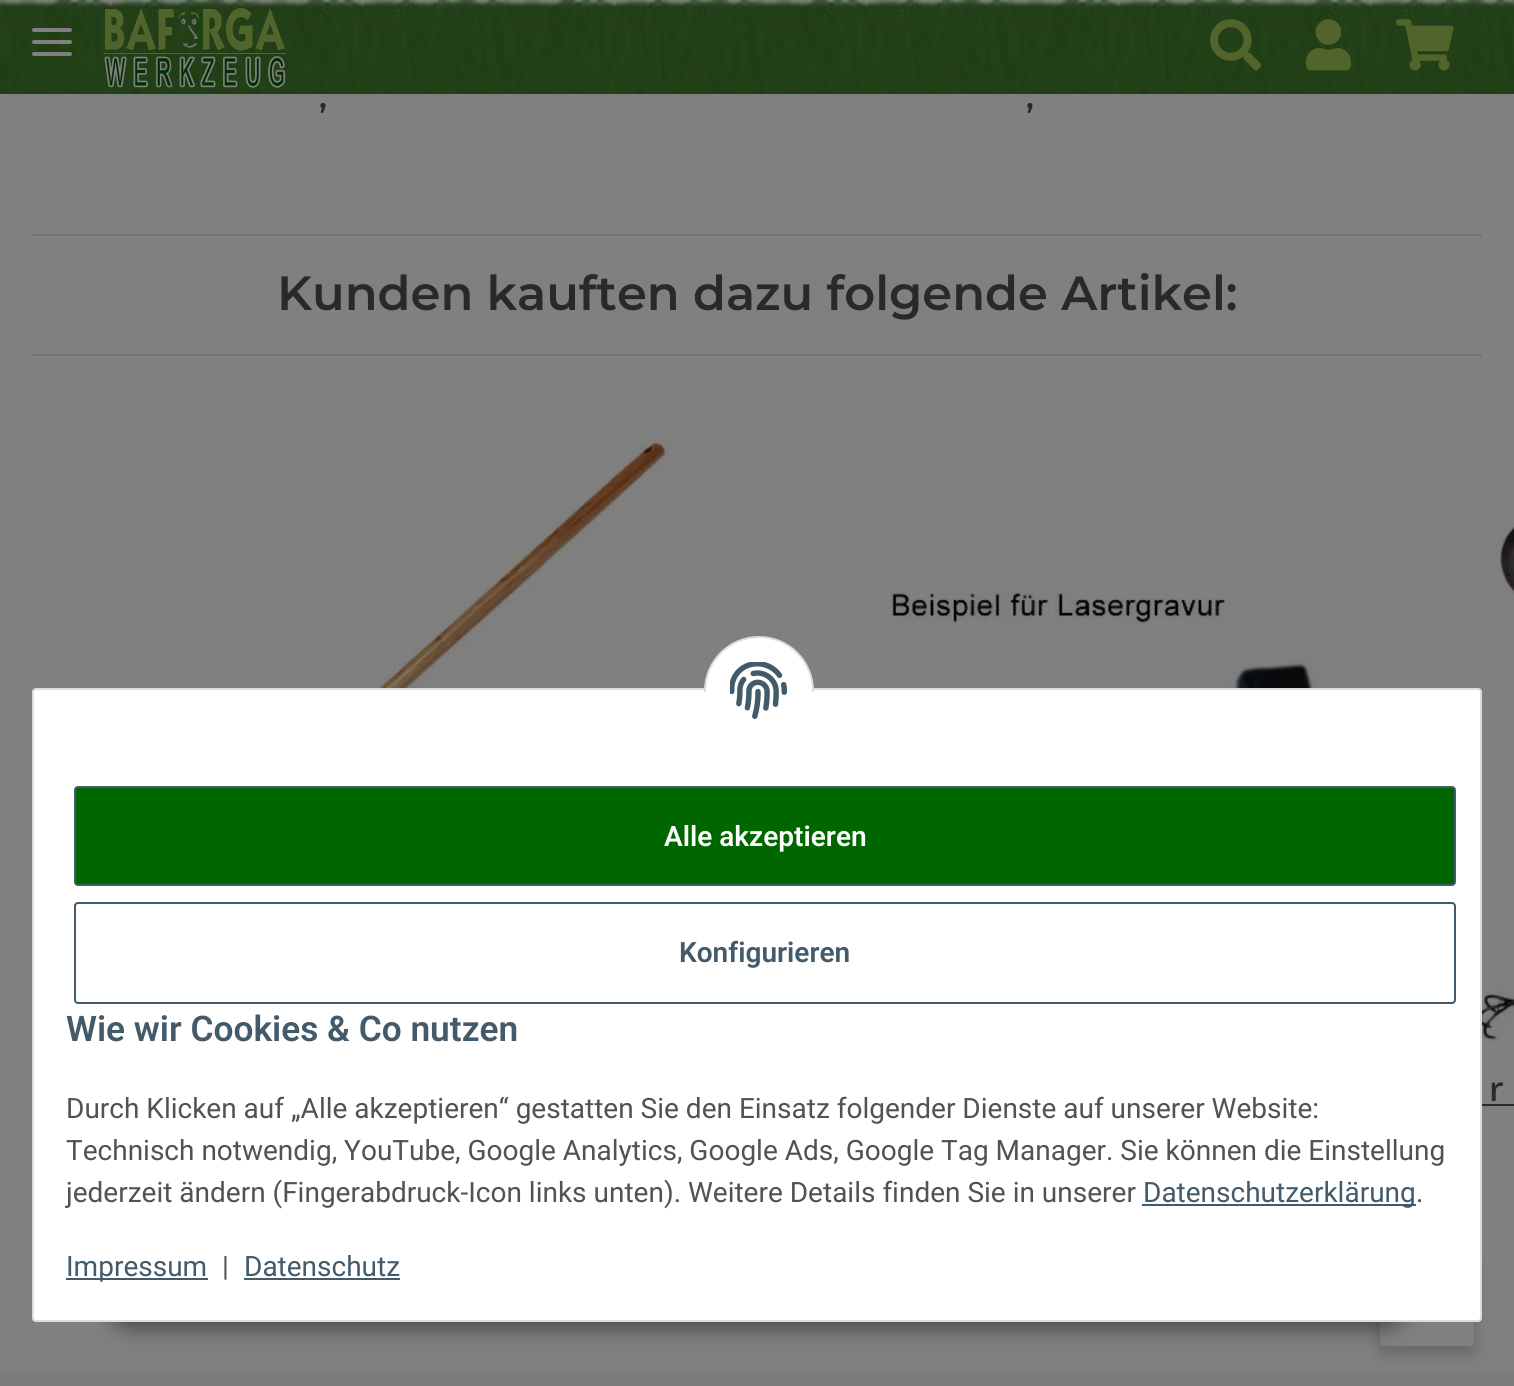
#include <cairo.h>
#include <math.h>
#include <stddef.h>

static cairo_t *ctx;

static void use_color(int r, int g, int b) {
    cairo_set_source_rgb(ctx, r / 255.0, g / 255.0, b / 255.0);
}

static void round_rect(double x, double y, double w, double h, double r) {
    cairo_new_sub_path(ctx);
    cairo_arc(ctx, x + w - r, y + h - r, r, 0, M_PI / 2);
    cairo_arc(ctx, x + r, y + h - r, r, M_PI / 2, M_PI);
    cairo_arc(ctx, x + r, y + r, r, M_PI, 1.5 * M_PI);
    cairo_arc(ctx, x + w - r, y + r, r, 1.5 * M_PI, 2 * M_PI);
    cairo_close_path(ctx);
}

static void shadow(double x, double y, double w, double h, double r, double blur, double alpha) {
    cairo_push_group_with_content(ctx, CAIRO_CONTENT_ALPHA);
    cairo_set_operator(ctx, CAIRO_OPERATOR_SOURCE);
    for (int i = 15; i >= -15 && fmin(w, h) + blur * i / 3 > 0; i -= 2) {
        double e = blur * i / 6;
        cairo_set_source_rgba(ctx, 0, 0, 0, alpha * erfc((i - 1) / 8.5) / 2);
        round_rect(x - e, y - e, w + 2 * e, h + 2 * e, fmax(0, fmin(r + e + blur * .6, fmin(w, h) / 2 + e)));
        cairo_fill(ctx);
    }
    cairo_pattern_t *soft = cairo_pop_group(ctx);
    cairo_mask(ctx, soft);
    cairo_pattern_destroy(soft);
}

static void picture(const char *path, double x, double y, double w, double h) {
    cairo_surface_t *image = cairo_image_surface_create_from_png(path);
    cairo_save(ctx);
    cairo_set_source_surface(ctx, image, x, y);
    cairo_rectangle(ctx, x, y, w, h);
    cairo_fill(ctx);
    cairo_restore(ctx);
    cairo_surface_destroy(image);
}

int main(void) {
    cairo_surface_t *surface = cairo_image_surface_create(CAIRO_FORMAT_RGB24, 1514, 1386);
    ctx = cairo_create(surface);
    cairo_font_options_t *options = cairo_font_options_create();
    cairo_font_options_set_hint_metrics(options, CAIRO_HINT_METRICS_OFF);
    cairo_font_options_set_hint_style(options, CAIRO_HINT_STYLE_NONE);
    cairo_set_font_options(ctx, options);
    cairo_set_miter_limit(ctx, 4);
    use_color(123, 124, 125);
    cairo_paint(ctx);
    picture("img1.png", 0, 0, 1514, 94);
    use_color(128, 128, 128);
    round_rect(32, 40, 40, 4, 2);
    cairo_fill(ctx);
    round_rect(32, 28, 40, 4, 2);
    cairo_fill(ctx);
    round_rect(32, 52, 40, 4, 2);
    cairo_fill(ctx);
    picture("img2.png", 104, 8, 182, 80);
    picture("img3.png", 1210, 19, 52, 52);
    picture("img4.png", 1306, 19, 45, 52);
    picture("img5.png", 1396, 19, 58, 52);
    cairo_rectangle(ctx, 0, 94, 1514, 1276);
    cairo_fill(ctx);
    cairo_select_font_face(ctx, "Montserrat SemiBold", CAIRO_FONT_SLANT_NORMAL, CAIRO_FONT_WEIGHT_NORMAL);
    cairo_set_font_size(ctx, 32);
    use_color(41, 41, 41);
    cairo_move_to(ctx, 319, 108);
    cairo_show_text(ctx, ",");
    cairo_move_to(ctx, 1026, 108);
    cairo_show_text(ctx, ",");
    use_color(115, 115, 115);
    cairo_rectangle(ctx, 32, 234, 1450, 2);
    cairo_fill(ctx);
    cairo_rectangle(ctx, 32, 354, 1450, 2);
    cairo_fill(ctx);
    cairo_set_font_size(ctx, 48);
    use_color(41, 41, 41);
    cairo_move_to(ctx, 277, 310);
    cairo_show_text(ctx, "Kunden kauften dazu folgende Artikel:");
    picture("img6.png", 41, 440, 630, 248);
    picture("img7.png", 746, 588, 633, 100);
    picture("img8.png", 1474, 524, 40, 520);
    cairo_select_font_face(ctx, "Open Sans SemiBold", CAIRO_FONT_SLANT_NORMAL, CAIRO_FONT_WEIGHT_NORMAL);
    cairo_set_font_size(ctx, 34);
    cairo_move_to(ctx, 1489, 1101);
    cairo_show_text(ctx, "r");
    cairo_rectangle(ctx, 1482, 1104, 32, 2);
    cairo_fill(ctx);
    use_color(0, 0, 0);
    shadow(1380, 1266, 94, 88, 4, 8, 0.2);
    use_color(128, 128, 128);
    round_rect(1380, 1258, 94, 88, 4);
    cairo_fill(ctx);
    use_color(0, 0, 0);
    shadow(106, 1264, 1302, 64, 32, 10, 0.45);
    use_color(255, 255, 255);
    round_rect(33, 689, 1448, 632, 3);
    cairo_fill_preserve(ctx);
    use_color(221, 221, 221);
    cairo_stroke(ctx);
    use_color(255, 255, 255);
    cairo_arc(ctx, 759, 691, 54, 0, 2 * M_PI);
    cairo_fill_preserve(ctx);
    use_color(221, 221, 221);
    cairo_stroke(ctx);
    use_color(255, 255, 255);
    cairo_rectangle(ctx, 704, 692, 110, 54);
    cairo_fill(ctx);
    picture("img9.png", 730, 662, 57, 57);
    use_color(0, 102, 0);
    round_rect(75, 787, 1380, 98, 3);
    cairo_fill_preserve(ctx);
    use_color(67, 90, 107);
    cairo_stroke(ctx);
    cairo_select_font_face(ctx, "Roboto SemiBold", CAIRO_FONT_SLANT_NORMAL, CAIRO_FONT_WEIGHT_NORMAL);
    cairo_set_font_size(ctx, 28);
    use_color(255, 255, 255);
    cairo_move_to(ctx, 664, 846);
    cairo_show_text(ctx, "Alle akzeptieren");
    round_rect(75, 903, 1380, 100, 3);
    use_color(67, 90, 107);
    cairo_stroke(ctx);
    cairo_move_to(ctx, 679, 962);
    cairo_show_text(ctx, "Konfigurieren");
    cairo_set_font_size(ctx, 35.25);
    cairo_move_to(ctx, 66, 1041);
    cairo_show_text(ctx, "Wie wir Cookies & Co nutzen");
    cairo_select_font_face(ctx, "Roboto", CAIRO_FONT_SLANT_NORMAL, CAIRO_FONT_WEIGHT_NORMAL);
    cairo_set_font_size(ctx, 28);
    use_color(82, 82, 82);
    cairo_move_to(ctx, 66, 1118);
    cairo_show_text(ctx, "Durch Klicken auf „Alle akzeptieren“ gestatten Sie den Einsatz folgender Dienste auf unserer Website:");
    cairo_move_to(ctx, 66, 1160);
    cairo_show_text(ctx, "Technisch notwendig, YouTube, Google Analytics, Google Ads, Google Tag Manager. Sie können die Einstellung");
    cairo_move_to(ctx, 66, 1202);
    cairo_show_text(ctx, "jederzeit ändern (Fingerabdruck-Icon links unten). Weitere Details finden Sie in unserer");
    use_color(67, 90, 107);
    cairo_rectangle(ctx, 1142, 1204, 274, 2);
    cairo_fill(ctx);
    cairo_move_to(ctx, 1143, 1202);
    cairo_show_text(ctx, "Datenschutzerklärung");
    use_color(82, 82, 82);
    cairo_move_to(ctx, 1416, 1202);
    cairo_show_text(ctx, ".");
    use_color(67, 90, 107);
    cairo_rectangle(ctx, 66, 1278, 142, 2);
    cairo_fill(ctx);
    cairo_move_to(ctx, 66, 1276);
    cairo_show_text(ctx, "Impressum");
    use_color(82, 82, 82);
    cairo_move_to(ctx, 222, 1276);
    cairo_show_text(ctx, "|");
    use_color(67, 90, 107);
    cairo_move_to(ctx, 244, 1276);
    cairo_show_text(ctx, "Datenschutz");
    cairo_rectangle(ctx, 244, 1278, 156, 2);
    cairo_fill(ctx);
    cairo_surface_write_to_png(surface, "result.png");
    cairo_font_options_destroy(options);
    cairo_destroy(ctx);
    cairo_surface_destroy(surface);
    return 0;
}
